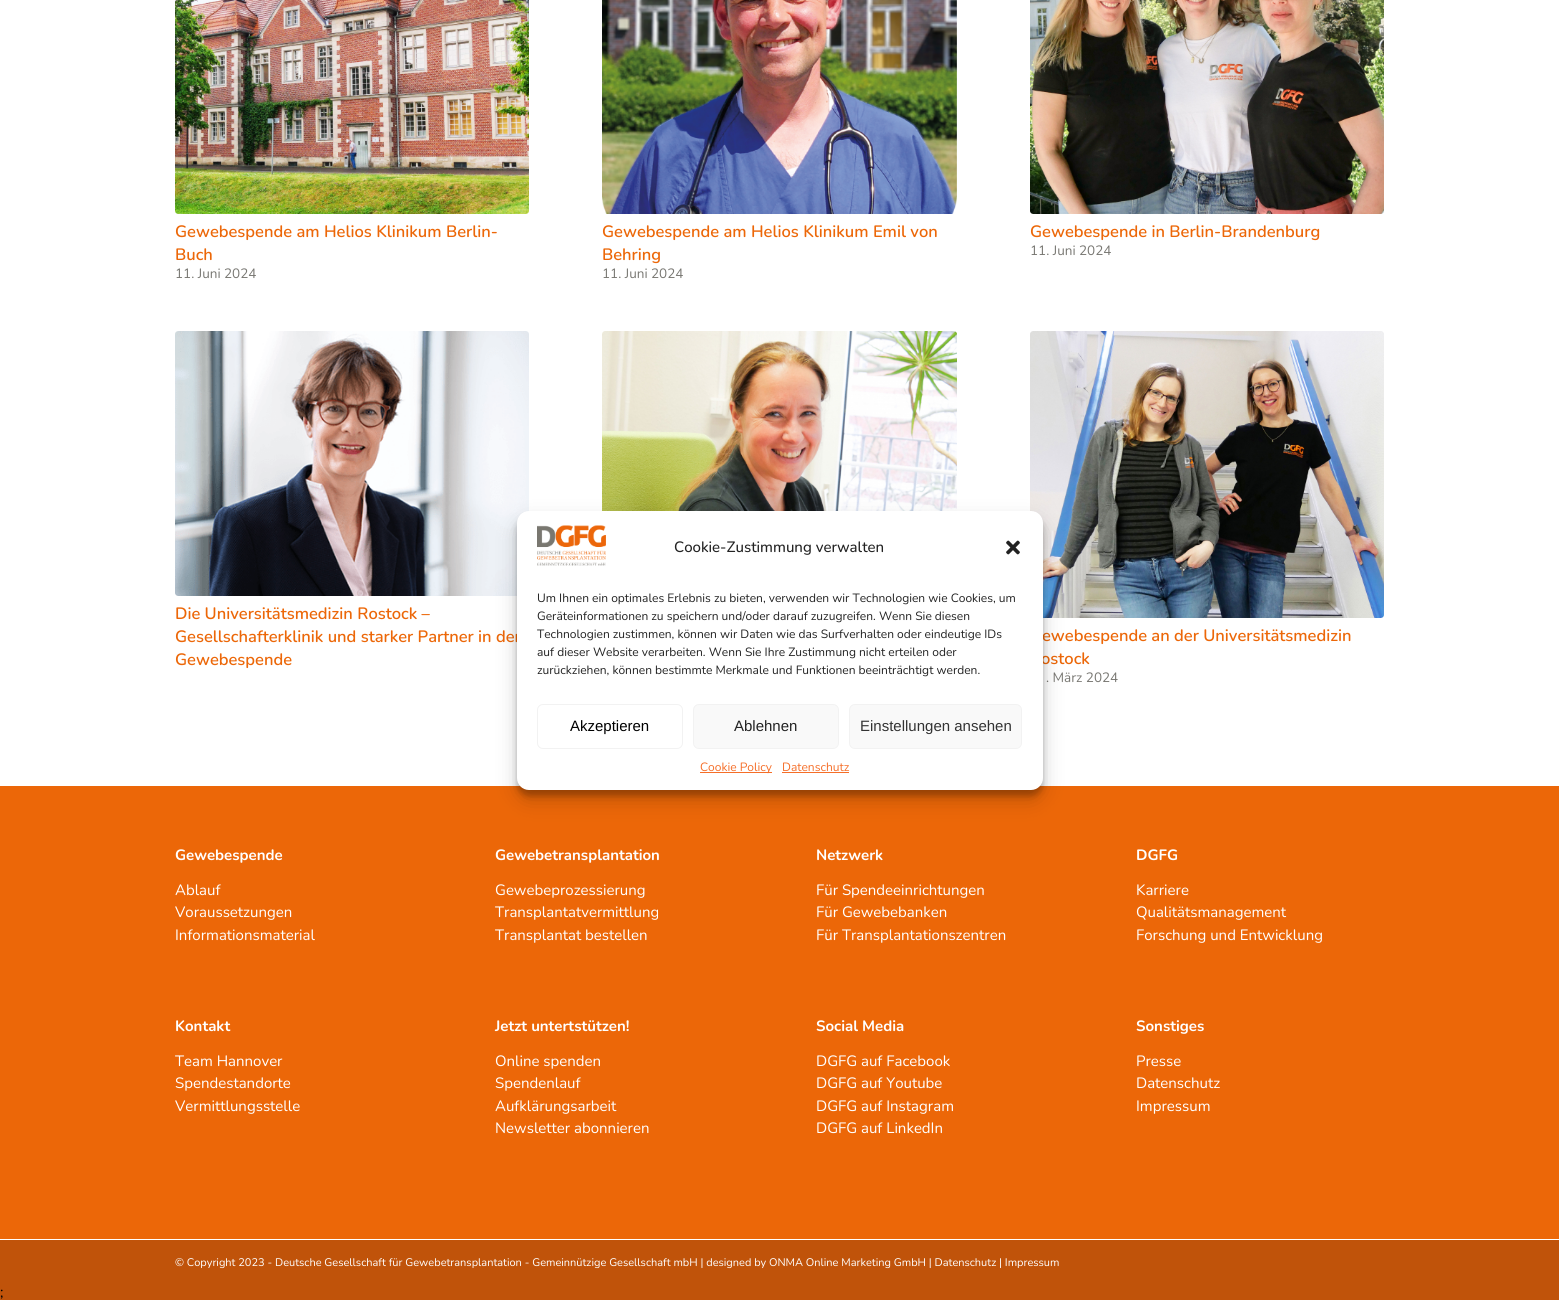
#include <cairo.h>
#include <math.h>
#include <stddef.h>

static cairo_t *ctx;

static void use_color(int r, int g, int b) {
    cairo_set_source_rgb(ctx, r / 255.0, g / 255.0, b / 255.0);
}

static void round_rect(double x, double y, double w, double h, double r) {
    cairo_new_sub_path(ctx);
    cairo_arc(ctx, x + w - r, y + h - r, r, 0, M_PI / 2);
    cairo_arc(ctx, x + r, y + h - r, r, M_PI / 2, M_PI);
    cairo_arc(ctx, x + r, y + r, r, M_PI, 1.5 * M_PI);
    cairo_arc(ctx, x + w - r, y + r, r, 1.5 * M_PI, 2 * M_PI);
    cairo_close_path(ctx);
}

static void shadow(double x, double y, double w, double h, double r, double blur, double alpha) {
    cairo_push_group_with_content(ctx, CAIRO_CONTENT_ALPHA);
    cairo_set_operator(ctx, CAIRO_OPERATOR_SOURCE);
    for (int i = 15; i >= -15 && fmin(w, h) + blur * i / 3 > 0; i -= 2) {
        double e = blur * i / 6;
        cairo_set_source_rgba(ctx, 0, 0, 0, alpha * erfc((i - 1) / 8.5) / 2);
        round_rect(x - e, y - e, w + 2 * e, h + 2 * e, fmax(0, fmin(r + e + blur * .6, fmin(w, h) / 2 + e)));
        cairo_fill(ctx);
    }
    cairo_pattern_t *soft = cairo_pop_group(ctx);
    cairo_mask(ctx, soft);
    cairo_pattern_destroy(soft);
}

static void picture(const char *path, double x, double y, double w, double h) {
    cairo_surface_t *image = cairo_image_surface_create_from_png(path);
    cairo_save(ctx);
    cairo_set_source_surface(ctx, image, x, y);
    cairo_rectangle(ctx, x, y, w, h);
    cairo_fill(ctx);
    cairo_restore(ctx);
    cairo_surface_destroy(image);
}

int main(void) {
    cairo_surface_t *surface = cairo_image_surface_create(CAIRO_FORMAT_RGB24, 1559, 1300);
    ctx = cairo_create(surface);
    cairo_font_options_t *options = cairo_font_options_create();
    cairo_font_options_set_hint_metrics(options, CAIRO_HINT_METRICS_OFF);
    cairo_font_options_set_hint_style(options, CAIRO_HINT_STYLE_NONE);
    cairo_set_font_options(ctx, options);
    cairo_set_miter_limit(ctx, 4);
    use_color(192, 83, 10);
    cairo_paint(ctx);
    use_color(255, 255, 255);
    cairo_rectangle(ctx, 0, 0, 1559, 786);
    cairo_fill(ctx);
    picture("img1.png", 175, 0, 354, 214);
    cairo_select_font_face(ctx, "Nunito SemiBold", CAIRO_FONT_SLANT_NORMAL, CAIRO_FONT_WEIGHT_NORMAL);
    cairo_set_font_size(ctx, 16.5);
    use_color(236, 103, 8);
    cairo_move_to(ctx, 175, 237);
    cairo_show_text(ctx, "Gewebespende am Helios Klinikum Berlin-");
    cairo_move_to(ctx, 175, 260);
    cairo_show_text(ctx, "Buch");
    cairo_select_font_face(ctx, "Nunito", CAIRO_FONT_SLANT_NORMAL, CAIRO_FONT_WEIGHT_NORMAL);
    cairo_set_font_size(ctx, 13.5);
    use_color(120, 119, 114);
    cairo_move_to(ctx, 175, 278);
    cairo_show_text(ctx, "11. Juni 2024");
    picture("img2.png", 602, 0, 355, 214);
    cairo_select_font_face(ctx, "Nunito SemiBold", CAIRO_FONT_SLANT_NORMAL, CAIRO_FONT_WEIGHT_NORMAL);
    cairo_set_font_size(ctx, 16.5);
    use_color(236, 103, 8);
    cairo_move_to(ctx, 602, 237);
    cairo_show_text(ctx, "Gewebespende am Helios Klinikum Emil von");
    cairo_move_to(ctx, 602, 260);
    cairo_show_text(ctx, "Behring");
    cairo_select_font_face(ctx, "Nunito", CAIRO_FONT_SLANT_NORMAL, CAIRO_FONT_WEIGHT_NORMAL);
    cairo_set_font_size(ctx, 13.5);
    use_color(120, 119, 114);
    cairo_move_to(ctx, 602, 278);
    cairo_show_text(ctx, "11. Juni 2024");
    picture("img3.png", 1030, 0, 354, 214);
    cairo_select_font_face(ctx, "Nunito SemiBold", CAIRO_FONT_SLANT_NORMAL, CAIRO_FONT_WEIGHT_NORMAL);
    cairo_set_font_size(ctx, 16.5);
    use_color(236, 103, 8);
    cairo_move_to(ctx, 1030, 237);
    cairo_show_text(ctx, "Gewebespende in Berlin-Brandenburg");
    cairo_select_font_face(ctx, "Nunito", CAIRO_FONT_SLANT_NORMAL, CAIRO_FONT_WEIGHT_NORMAL);
    cairo_set_font_size(ctx, 13.5);
    use_color(120, 119, 114);
    cairo_move_to(ctx, 1030, 255);
    cairo_show_text(ctx, "11. Juni 2024");
    picture("img4.png", 602, 331, 355, 180);
    picture("img5.png", 175, 331, 354, 265);
    cairo_select_font_face(ctx, "Nunito SemiBold", CAIRO_FONT_SLANT_NORMAL, CAIRO_FONT_WEIGHT_NORMAL);
    cairo_set_font_size(ctx, 16.5);
    use_color(236, 103, 8);
    cairo_move_to(ctx, 175, 619);
    cairo_show_text(ctx, "Die Universitätsmedizin Rostock –");
    cairo_move_to(ctx, 175, 642);
    cairo_show_text(ctx, "Gesellschafterklinik und starker Partner in der");
    cairo_move_to(ctx, 175, 665);
    cairo_show_text(ctx, "Gewebespende");
    picture("img6.png", 1030, 331, 354, 287);
    cairo_move_to(ctx, 1042, 641);
    cairo_show_text(ctx, "ewebespende an der Universitätsmedizin");
    cairo_move_to(ctx, 1041, 664);
    cairo_show_text(ctx, "ostock");
    cairo_select_font_face(ctx, "Nunito", CAIRO_FONT_SLANT_NORMAL, CAIRO_FONT_WEIGHT_NORMAL);
    cairo_set_font_size(ctx, 13.5);
    use_color(120, 119, 114);
    cairo_move_to(ctx, 1046, 682);
    cairo_show_text(ctx, ". März 2024");
    use_color(236, 103, 8);
    cairo_rectangle(ctx, 0, 786, 1559, 453);
    cairo_fill(ctx);
    cairo_select_font_face(ctx, "Nunito", CAIRO_FONT_SLANT_NORMAL, CAIRO_FONT_WEIGHT_BOLD);
    cairo_set_font_size(ctx, 15);
    use_color(255, 255, 255);
    cairo_move_to(ctx, 175, 860);
    cairo_show_text(ctx, "Gewebespende");
    cairo_select_font_face(ctx, "Nunito", CAIRO_FONT_SLANT_NORMAL, CAIRO_FONT_WEIGHT_NORMAL);
    cairo_move_to(ctx, 175, 895);
    cairo_show_text(ctx, "Ablauf");
    cairo_move_to(ctx, 175, 917);
    cairo_show_text(ctx, "Voraussetzungen");
    cairo_move_to(ctx, 175, 940);
    cairo_show_text(ctx, "Informationsmaterial");
    cairo_select_font_face(ctx, "Nunito", CAIRO_FONT_SLANT_NORMAL, CAIRO_FONT_WEIGHT_BOLD);
    cairo_move_to(ctx, 175, 1031);
    cairo_show_text(ctx, "Kontakt");
    cairo_select_font_face(ctx, "Nunito", CAIRO_FONT_SLANT_NORMAL, CAIRO_FONT_WEIGHT_NORMAL);
    cairo_move_to(ctx, 175, 1066);
    cairo_show_text(ctx, "Team Hannover");
    cairo_move_to(ctx, 175, 1088);
    cairo_show_text(ctx, "Spendestandorte");
    cairo_move_to(ctx, 175, 1111);
    cairo_show_text(ctx, "Vermittlungsstelle");
    cairo_select_font_face(ctx, "Nunito", CAIRO_FONT_SLANT_NORMAL, CAIRO_FONT_WEIGHT_BOLD);
    cairo_move_to(ctx, 495, 860);
    cairo_show_text(ctx, "Gewebetransplantation");
    cairo_select_font_face(ctx, "Nunito", CAIRO_FONT_SLANT_NORMAL, CAIRO_FONT_WEIGHT_NORMAL);
    cairo_move_to(ctx, 495, 895);
    cairo_show_text(ctx, "Gewebeprozessierung");
    cairo_move_to(ctx, 495, 917);
    cairo_show_text(ctx, "Transplantatvermittlung");
    cairo_move_to(ctx, 495, 940);
    cairo_show_text(ctx, "Transplantat bestellen");
    cairo_select_font_face(ctx, "Nunito", CAIRO_FONT_SLANT_NORMAL, CAIRO_FONT_WEIGHT_BOLD);
    cairo_move_to(ctx, 495, 1031);
    cairo_show_text(ctx, "Jetzt untertstützen!");
    cairo_select_font_face(ctx, "Nunito", CAIRO_FONT_SLANT_NORMAL, CAIRO_FONT_WEIGHT_NORMAL);
    cairo_move_to(ctx, 495, 1066);
    cairo_show_text(ctx, "Online spenden");
    cairo_move_to(ctx, 495, 1088);
    cairo_show_text(ctx, "Spendenlauf");
    cairo_move_to(ctx, 495, 1111);
    cairo_show_text(ctx, "Aufklärungsarbeit");
    cairo_move_to(ctx, 495, 1133);
    cairo_show_text(ctx, "Newsletter abonnieren");
    cairo_select_font_face(ctx, "Nunito", CAIRO_FONT_SLANT_NORMAL, CAIRO_FONT_WEIGHT_BOLD);
    cairo_move_to(ctx, 816, 860);
    cairo_show_text(ctx, "Netzwerk");
    cairo_select_font_face(ctx, "Nunito", CAIRO_FONT_SLANT_NORMAL, CAIRO_FONT_WEIGHT_NORMAL);
    cairo_move_to(ctx, 816, 895);
    cairo_show_text(ctx, "Für Spendeeinrichtungen");
    cairo_move_to(ctx, 816, 917);
    cairo_show_text(ctx, "Für Gewebebanken");
    cairo_move_to(ctx, 816, 940);
    cairo_show_text(ctx, "Für Transplantationszentren");
    cairo_select_font_face(ctx, "Nunito", CAIRO_FONT_SLANT_NORMAL, CAIRO_FONT_WEIGHT_BOLD);
    cairo_move_to(ctx, 816, 1031);
    cairo_show_text(ctx, "Social Media");
    cairo_select_font_face(ctx, "Nunito", CAIRO_FONT_SLANT_NORMAL, CAIRO_FONT_WEIGHT_NORMAL);
    cairo_move_to(ctx, 816, 1066);
    cairo_show_text(ctx, "DGFG auf Facebook");
    cairo_move_to(ctx, 816, 1088);
    cairo_show_text(ctx, "DGFG auf Youtube");
    cairo_move_to(ctx, 816, 1111);
    cairo_show_text(ctx, "DGFG auf Instagram");
    cairo_move_to(ctx, 816, 1133);
    cairo_show_text(ctx, "DGFG auf LinkedIn");
    cairo_select_font_face(ctx, "Nunito", CAIRO_FONT_SLANT_NORMAL, CAIRO_FONT_WEIGHT_BOLD);
    cairo_move_to(ctx, 1136, 860);
    cairo_show_text(ctx, "DGFG");
    cairo_select_font_face(ctx, "Nunito", CAIRO_FONT_SLANT_NORMAL, CAIRO_FONT_WEIGHT_NORMAL);
    cairo_move_to(ctx, 1136, 895);
    cairo_show_text(ctx, "Karriere");
    cairo_move_to(ctx, 1136, 917);
    cairo_show_text(ctx, "Qualitätsmanagement");
    cairo_move_to(ctx, 1136, 940);
    cairo_show_text(ctx, "Forschung und Entwicklung");
    cairo_select_font_face(ctx, "Nunito", CAIRO_FONT_SLANT_NORMAL, CAIRO_FONT_WEIGHT_BOLD);
    cairo_move_to(ctx, 1136, 1031);
    cairo_show_text(ctx, "Sonstiges");
    cairo_select_font_face(ctx, "Nunito", CAIRO_FONT_SLANT_NORMAL, CAIRO_FONT_WEIGHT_NORMAL);
    cairo_move_to(ctx, 1136, 1066);
    cairo_show_text(ctx, "Presse");
    cairo_move_to(ctx, 1136, 1088);
    cairo_show_text(ctx, "Datenschutz");
    cairo_move_to(ctx, 1136, 1111);
    cairo_show_text(ctx, "Impressum");
    cairo_rectangle(ctx, 0, 1239, 1559, 1);
    cairo_fill(ctx);
    cairo_set_font_size(ctx, 11);
    cairo_move_to(ctx, 175, 1266);
    cairo_show_text(ctx, "© Copyright 2023 - Deutsche Gesellschaft für Gewebetransplantation - Gemeinnützige Gesellschaft mbH | designed by ONMA Online Marketing GmbH | Datenschutz | Impressum");
    use_color(0, 0, 0);
    shadow(517, 517, 526, 279, 12, 3, 0.23);
    shadow(517, 521, 526, 279, 12, 10, 0.19);
    use_color(255, 255, 255);
    round_rect(517, 511, 526, 279, 12);
    cairo_fill(ctx);
    picture("img7.png", 537, 525, 69, 41);
    cairo_select_font_face(ctx, "Nunito Medium", CAIRO_FONT_SLANT_NORMAL, CAIRO_FONT_WEIGHT_NORMAL);
    cairo_set_font_size(ctx, 15);
    use_color(34, 34, 34);
    cairo_move_to(ctx, 674, 552);
    cairo_show_text(ctx, "Cookie-Zustimmung verwalten");
    picture("img8.png", 1006, 540, 14, 15);
    cairo_select_font_face(ctx, "Nunito", CAIRO_FONT_SLANT_NORMAL, CAIRO_FONT_WEIGHT_NORMAL);
    cairo_set_font_size(ctx, 12);
    cairo_move_to(ctx, 537, 602);
    cairo_show_text(ctx, "Um Ihnen ein optimales Erlebnis zu bieten, verwenden wir Technologien wie Cookies, um");
    cairo_move_to(ctx, 537, 620);
    cairo_show_text(ctx, "Geräteinformationen zu speichern und/oder darauf zuzugreifen. Wenn Sie diesen");
    cairo_move_to(ctx, 537, 638);
    cairo_show_text(ctx, "Technologien zustimmen, können wir Daten wie das Surfverhalten oder eindeutige IDs");
    cairo_move_to(ctx, 537, 656);
    cairo_show_text(ctx, "auf dieser Website verarbeiten. Wenn Sie Ihre Zustimmung nicht erteilen oder");
    cairo_move_to(ctx, 537, 674);
    cairo_show_text(ctx, "zurückziehen, können bestimmte Merkmale und Funktionen beeinträchtigt werden.");
    round_rect(537.5, 704.5, 145, 44, 5.5);
    use_color(242, 242, 242);
    cairo_set_line_width(ctx, 1);
    cairo_stroke(ctx);
    cairo_select_font_face(ctx, "Liberation Sans", CAIRO_FONT_SLANT_NORMAL, CAIRO_FONT_WEIGHT_NORMAL);
    cairo_set_font_size(ctx, 15);
    use_color(0, 0, 0);
    cairo_move_to(ctx, 570, 731);
    cairo_show_text(ctx, "Akzeptieren");
    use_color(249, 249, 249);
    round_rect(693.5, 704.5, 145, 44, 5.5);
    cairo_fill_preserve(ctx);
    use_color(242, 242, 242);
    cairo_stroke(ctx);
    use_color(34, 34, 34);
    cairo_move_to(ctx, 734, 731);
    cairo_show_text(ctx, "Ablehnen");
    use_color(249, 249, 249);
    round_rect(849.5, 704.5, 172, 44, 5.5);
    cairo_fill_preserve(ctx);
    use_color(242, 242, 242);
    cairo_stroke(ctx);
    use_color(51, 51, 51);
    cairo_move_to(ctx, 860, 731);
    cairo_show_text(ctx, "Einstellungen ansehen");
    use_color(245, 110, 40);
    cairo_rectangle(ctx, 700, 772, 72, 1);
    cairo_fill(ctx);
    cairo_select_font_face(ctx, "Nunito", CAIRO_FONT_SLANT_NORMAL, CAIRO_FONT_WEIGHT_NORMAL);
    cairo_set_font_size(ctx, 12);
    cairo_move_to(ctx, 700, 771);
    cairo_show_text(ctx, "Cookie Policy");
    cairo_move_to(ctx, 782, 771);
    cairo_show_text(ctx, "Datenschutz");
    cairo_rectangle(ctx, 782, 772, 67, 1);
    cairo_fill(ctx);
    cairo_set_font_size(ctx, 15);
    use_color(0, 0, 0);
    cairo_move_to(ctx, 0, 1297);
    cairo_show_text(ctx, ";");
    cairo_surface_write_to_png(surface, "result.png");
    cairo_font_options_destroy(options);
    cairo_destroy(ctx);
    cairo_surface_destroy(surface);
    return 0;
}
